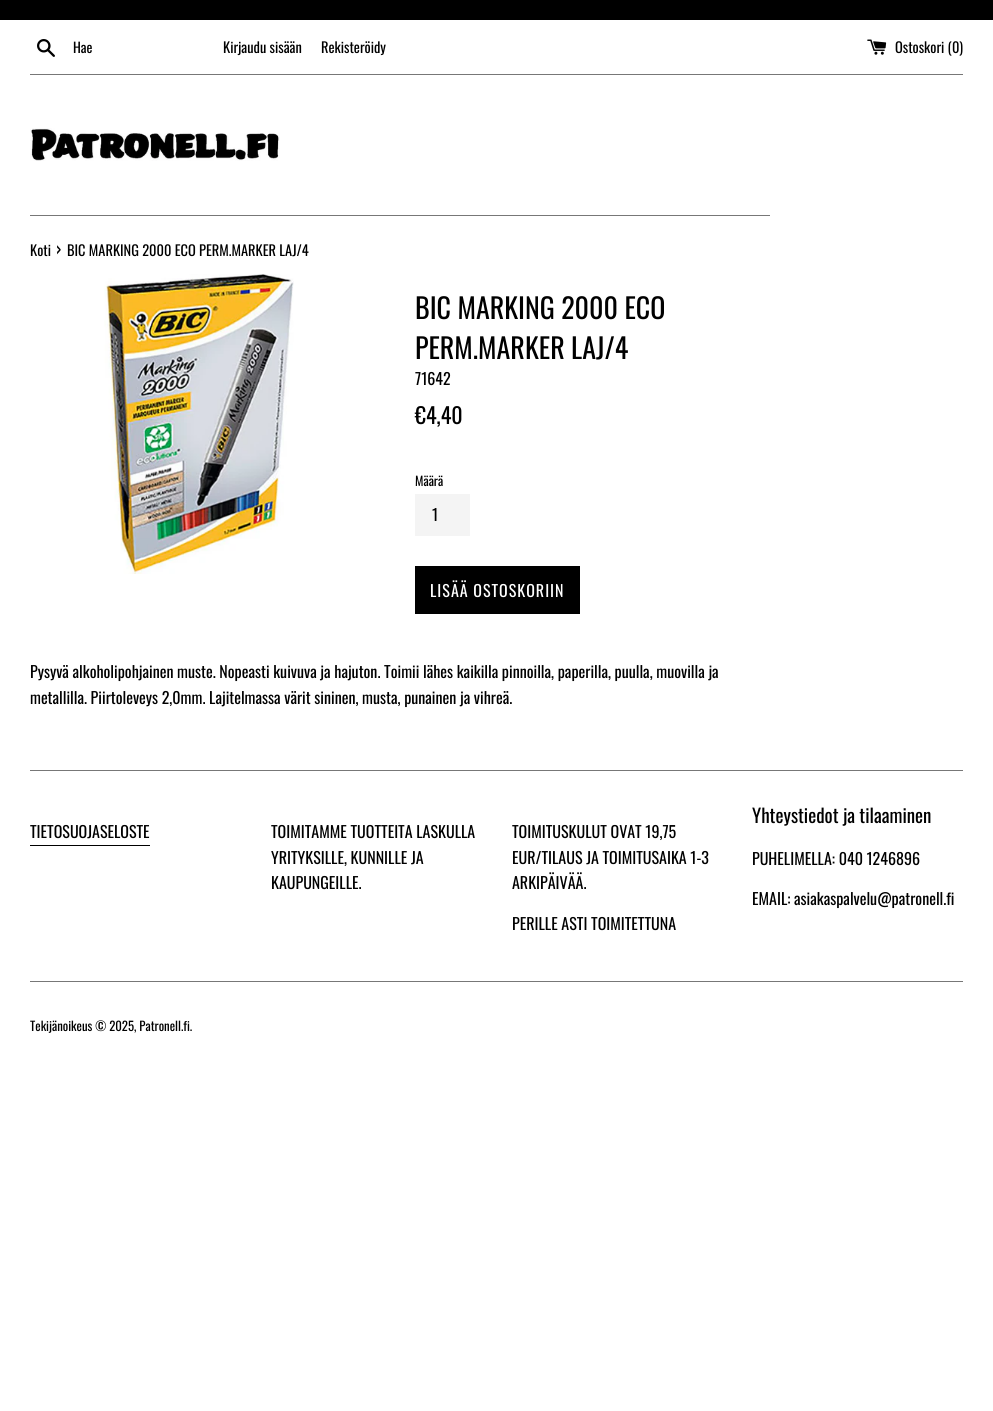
#include <cairo.h>
#include <math.h>
#include <stddef.h>

static cairo_t *ctx;

static void use_color(int r, int g, int b) {
    cairo_set_source_rgb(ctx, r / 255.0, g / 255.0, b / 255.0);
}

static void spaced_text(double x, double y, const char *s, double letter, double word) {
    cairo_move_to(ctx, x, y);
    while (*s) {
        char ch[5] = {0};
        int n = 0;
        do ch[n++] = *s++; while ((*s & 0xC0) == 0x80);
        cairo_show_text(ctx, ch);
        cairo_rel_move_to(ctx, letter + word * (*ch == ' '), 0);
    }
}

static void picture(const char *path, double x, double y, double w, double h) {
    cairo_surface_t *image = cairo_image_surface_create_from_png(path);
    cairo_save(ctx);
    cairo_set_source_surface(ctx, image, x, y);
    cairo_rectangle(ctx, x, y, w, h);
    cairo_fill(ctx);
    cairo_restore(ctx);
    cairo_surface_destroy(image);
}

int main(void) {
    cairo_surface_t *surface = cairo_image_surface_create(CAIRO_FORMAT_RGB24, 993, 1411);
    ctx = cairo_create(surface);
    cairo_font_options_t *options = cairo_font_options_create();
    cairo_font_options_set_hint_metrics(options, CAIRO_HINT_METRICS_OFF);
    cairo_font_options_set_hint_style(options, CAIRO_HINT_STYLE_NONE);
    cairo_set_font_options(ctx, options);
    cairo_set_miter_limit(ctx, 4);
    use_color(255, 255, 255);
    cairo_paint(ctx);
    use_color(0, 0, 0);
    cairo_rectangle(ctx, 0, 0, 993, 20);
    cairo_fill(ctx);
    picture("img1.png", 37, 39, 18, 18);
    cairo_select_font_face(ctx, "Oswald", CAIRO_FONT_SLANT_NORMAL, CAIRO_FONT_WEIGHT_NORMAL);
    cairo_set_font_size(ctx, 14);
    cairo_move_to(ctx, 73, 53);
    cairo_show_text(ctx, "Hae");
    cairo_set_font_size(ctx, 14.4);
    cairo_move_to(ctx, 223, 53);
    cairo_show_text(ctx, "Kirjaudu sisään");
    cairo_move_to(ctx, 321, 53);
    cairo_show_text(ctx, "Rekisteröidy");
    picture("img2.png", 867, 39, 20, 16);
    cairo_move_to(ctx, 895, 53);
    cairo_show_text(ctx, "Ostoskori (0)");
    use_color(119, 119, 119);
    cairo_rectangle(ctx, 30, 74, 933, 1);
    cairo_fill(ctx);
    picture("img3.png", 30, 128, 250, 33);
    cairo_rectangle(ctx, 30, 215, 740, 1);
    cairo_fill(ctx);
    use_color(0, 0, 0);
    cairo_move_to(ctx, 30, 256);
    cairo_show_text(ctx, "Koti");
    cairo_set_font_size(ctx, 18);
    cairo_move_to(ctx, 56, 256);
    cairo_show_text(ctx, "›");
    cairo_set_font_size(ctx, 14.4);
    cairo_move_to(ctx, 67, 256);
    cairo_show_text(ctx, "BIC MARKING 2000 ECO PERM.MARKER LAJ/4");
    picture("img4.png", 104, 274, 190, 300);
    cairo_set_font_size(ctx, 28);
    cairo_move_to(ctx, 415, 319);
    cairo_show_text(ctx, "BIC MARKING 2000 ECO");
    cairo_move_to(ctx, 415, 359);
    cairo_show_text(ctx, "PERM.MARKER LAJ/4");
    cairo_set_font_size(ctx, 16);
    cairo_move_to(ctx, 415, 385);
    cairo_show_text(ctx, "71642");
    cairo_set_font_size(ctx, 22);
    cairo_move_to(ctx, 415, 424);
    cairo_show_text(ctx, "€4,40");
    cairo_set_font_size(ctx, 12.75);
    cairo_move_to(ctx, 415, 486);
    cairo_show_text(ctx, "Määrä");
    use_color(244, 244, 244);
    cairo_rectangle(ctx, 415, 494, 55, 42);
    cairo_fill(ctx);
    cairo_set_font_size(ctx, 16);
    use_color(0, 0, 0);
    cairo_move_to(ctx, 432, 521);
    cairo_show_text(ctx, "1");
    cairo_rectangle(ctx, 415, 566, 165, 48);
    cairo_fill(ctx);
    use_color(255, 255, 255);
    spaced_text(430, 597, "LISÄÄ OSTOSKORIIN", 1, 0);
    use_color(0, 0, 0);
    cairo_move_to(ctx, 30, 678);
    cairo_show_text(ctx, "Pysyvä alkoholipohjainen muste. Nopeasti kuivuva ja hajuton. Toimii lähes kaikilla pinnoilla, paperilla, puulla, muovilla ja");
    cairo_move_to(ctx, 30, 704);
    cairo_show_text(ctx, "metallilla. Piirtoleveys 2,0mm. Lajitelmassa värit sininen, musta, punainen ja vihreä.");
    use_color(119, 119, 119);
    cairo_rectangle(ctx, 30, 770, 933, 1);
    cairo_fill(ctx);
    use_color(0, 0, 0);
    cairo_move_to(ctx, 30, 838);
    cairo_show_text(ctx, "TIETOSUOJASELOSTE");
    cairo_rectangle(ctx, 30, 845, 120, 1);
    cairo_fill(ctx);
    cairo_move_to(ctx, 271, 838);
    cairo_show_text(ctx, "TOIMITAMME TUOTTEITA LASKULLA");
    cairo_move_to(ctx, 271, 864);
    cairo_show_text(ctx, "YRITYKSILLE, KUNNILLE JA");
    cairo_move_to(ctx, 271, 889);
    cairo_show_text(ctx, "KAUPUNGEILLE.");
    cairo_move_to(ctx, 512, 838);
    cairo_show_text(ctx, "TOIMITUSKULUT OVAT 19,75");
    cairo_move_to(ctx, 512, 864);
    cairo_show_text(ctx, "EUR/TILAUS JA TOIMITUSAIKA 1-3");
    cairo_move_to(ctx, 512, 889);
    cairo_show_text(ctx, "ARKIPÄIVÄÄ.");
    cairo_move_to(ctx, 512, 930);
    cairo_show_text(ctx, "PERILLE ASTI TOIMITETTUNA");
    cairo_set_font_size(ctx, 19);
    cairo_move_to(ctx, 752, 823);
    cairo_show_text(ctx, "Yhteystiedot ja tilaaminen");
    cairo_set_font_size(ctx, 16);
    cairo_move_to(ctx, 752, 865);
    cairo_show_text(ctx, "PUHELIMELLA: 040 1246896");
    cairo_move_to(ctx, 752, 905);
    cairo_show_text(ctx, "EMAIL: asiakaspalvelu@patronell.fi");
    use_color(119, 119, 119);
    cairo_rectangle(ctx, 30, 981, 933, 1);
    cairo_fill(ctx);
    cairo_set_font_size(ctx, 12.75);
    use_color(0, 0, 0);
    cairo_move_to(ctx, 30, 1031);
    cairo_show_text(ctx, "Tekijänoikeus © 2025, Patronell.fi.");
    cairo_surface_write_to_png(surface, "result.png");
    cairo_font_options_destroy(options);
    cairo_destroy(ctx);
    cairo_surface_destroy(surface);
    return 0;
}
